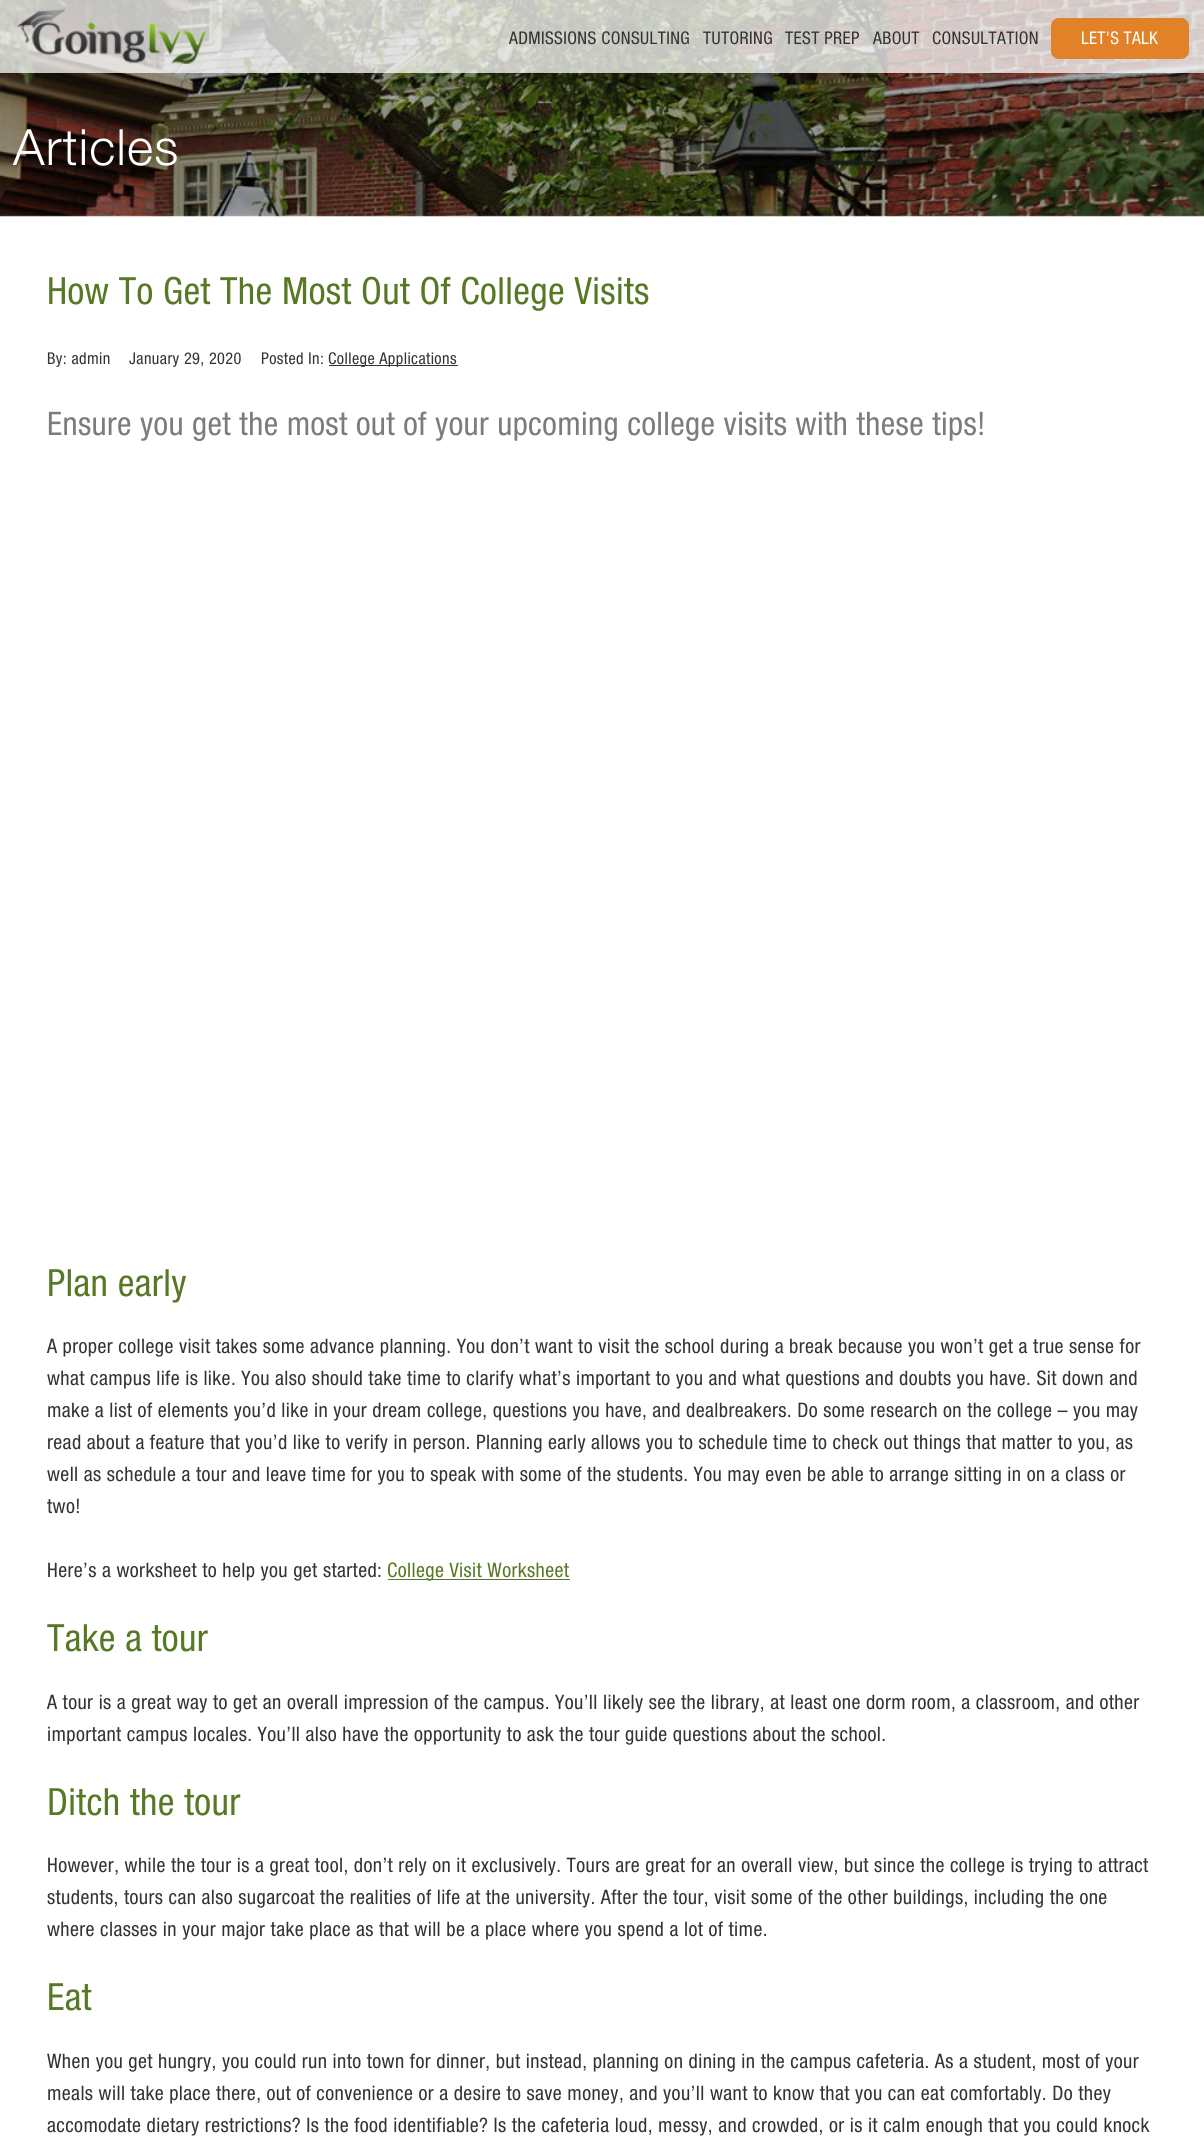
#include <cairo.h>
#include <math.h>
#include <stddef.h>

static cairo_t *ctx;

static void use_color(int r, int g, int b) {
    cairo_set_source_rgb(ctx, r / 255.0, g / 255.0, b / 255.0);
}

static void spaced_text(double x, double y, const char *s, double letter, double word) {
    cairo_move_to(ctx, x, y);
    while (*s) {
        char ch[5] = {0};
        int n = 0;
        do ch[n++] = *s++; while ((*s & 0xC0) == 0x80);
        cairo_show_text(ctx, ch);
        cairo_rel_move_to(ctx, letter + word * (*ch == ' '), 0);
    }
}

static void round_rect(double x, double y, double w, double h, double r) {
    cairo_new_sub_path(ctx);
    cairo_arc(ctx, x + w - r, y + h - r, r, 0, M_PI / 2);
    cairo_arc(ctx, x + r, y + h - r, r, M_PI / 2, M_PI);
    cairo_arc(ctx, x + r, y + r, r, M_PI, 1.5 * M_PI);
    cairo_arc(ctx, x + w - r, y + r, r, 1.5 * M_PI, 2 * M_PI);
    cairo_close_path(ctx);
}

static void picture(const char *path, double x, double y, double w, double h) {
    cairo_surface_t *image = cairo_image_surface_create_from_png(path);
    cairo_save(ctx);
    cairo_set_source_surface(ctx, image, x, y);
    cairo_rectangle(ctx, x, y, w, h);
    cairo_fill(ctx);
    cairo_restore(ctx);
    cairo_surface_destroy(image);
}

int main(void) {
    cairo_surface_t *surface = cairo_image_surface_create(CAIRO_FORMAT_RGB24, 1204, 2150);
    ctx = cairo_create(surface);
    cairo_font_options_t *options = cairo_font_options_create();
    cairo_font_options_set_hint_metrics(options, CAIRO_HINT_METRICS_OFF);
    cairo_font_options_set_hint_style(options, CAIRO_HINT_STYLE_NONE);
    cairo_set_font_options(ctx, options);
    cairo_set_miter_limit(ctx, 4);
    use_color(255, 255, 255);
    cairo_paint(ctx);
    picture("img2.png", 0, 0, 1204, 217);
    cairo_set_source_rgba(ctx, 1, 1, 1, 0.75);
    cairo_rectangle(ctx, 0, 0, 1204, 73);
    cairo_fill(ctx);
    picture("img1.png", 17, 8, 190, 56);
    cairo_select_font_face(ctx, "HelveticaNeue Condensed", CAIRO_FONT_SLANT_NORMAL, CAIRO_FONT_WEIGHT_NORMAL);
    cairo_set_font_size(ctx, 17.5);
    use_color(51, 51, 51);
    spaced_text(509, 44, "ADMISSIONS CONSULTING", 0.4, 0);
    spaced_text(703, 44, "TUTORING", 0.4, 0);
    spaced_text(785, 44, "TEST PREP", 0.4, 0);
    spaced_text(873, 44, "ABOUT", 0.4, 0);
    spaced_text(932, 44, "CONSULTATION", 0.4, 0);
    use_color(225, 130, 40);
    round_rect(1051.5, 18.5, 137, 40, 7.5);
    cairo_fill_preserve(ctx);
    cairo_set_line_width(ctx, 1);
    cairo_stroke(ctx);
    use_color(255, 255, 255);
    spaced_text(1081, 44, "LET'S TALK", 0.25, 0);
    cairo_select_font_face(ctx, "Helvetica Neue Light", CAIRO_FONT_SLANT_NORMAL, CAIRO_FONT_WEIGHT_NORMAL);
    cairo_set_font_size(ctx, 50);
    spaced_text(13, 165, "Articles", 1.25, 0);
    cairo_select_font_face(ctx, "HelveticaNeue Condensed", CAIRO_FONT_SLANT_NORMAL, CAIRO_FONT_WEIGHT_NORMAL);
    cairo_set_font_size(ctx, 37.5);
    use_color(87, 121, 37);
    spaced_text(47, 304, "How To Get The Most Out Of College Visits", 0.4, 0);
    cairo_set_font_size(ctx, 16.25);
    use_color(51, 51, 51);
    spaced_text(47, 364, "By: admin", 0.4, 0);
    spaced_text(129, 364, "January 29, 2020", 0.4, 0);
    spaced_text(261, 364, "Posted In:", 0.4, 0);
    cairo_rectangle(ctx, 329, 365, 129, 1);
    cairo_fill(ctx);
    spaced_text(328, 364, "College Applications", 0.4, 0);
    cairo_set_font_size(ctx, 32.5);
    use_color(123, 124, 123);
    spaced_text(47, 435, "Ensure you get the most out of your upcoming college visits with these tips!", 0.4, 0);
    cairo_set_font_size(ctx, 37.5);
    use_color(87, 121, 37);
    spaced_text(47, 1296, "Plan early", 0.4, 0);
    cairo_set_font_size(ctx, 20);
    use_color(51, 51, 51);
    spaced_text(47, 1353, "A proper college visit takes some advance planning. You don’t want to visit the school during a break because you won’t get a true sense for", 0.4, 0);
    spaced_text(47, 1385, "what campus life is like. You also should take time to clarify what’s important to you and what questions and doubts you have. Sit down and", 0.4, 0);
    spaced_text(47, 1417, "make a list of elements you’d like in your dream college, questions you have, and dealbreakers. Do some research on the college – you may", 0.4, 0);
    spaced_text(47, 1449, "read about a feature that you’d like to verify in person. Planning early allows you to schedule time to check out things that matter to you, as", 0.4, 0);
    spaced_text(47, 1481, "well as schedule a tour and leave time for you to speak with some of the students. You may even be able to arrange sitting in on a class or", 0.4, 0);
    spaced_text(47, 1513, "two!", 0.4, 0);
    spaced_text(47, 1577, "Here’s a worksheet to help you get started:", 0.4, 0);
    use_color(87, 121, 37);
    cairo_rectangle(ctx, 388, 1579, 182, 1);
    cairo_fill(ctx);
    spaced_text(387, 1577, "College Visit Worksheet", 0.4, 0);
    cairo_set_font_size(ctx, 37.5);
    spaced_text(47, 1651, "Take a tour", 0.4, 0);
    cairo_set_font_size(ctx, 20);
    use_color(51, 51, 51);
    spaced_text(47, 1709, "A tour is a great way to get an overall impression of the campus. You’ll likely see the library, at least one dorm room, a classroom, and other", 0.4, 0);
    spaced_text(47, 1741, "important campus locales. You’ll also have the opportunity to ask the tour guide questions about the school.", 0.4, 0);
    cairo_set_font_size(ctx, 37.5);
    use_color(87, 121, 37);
    spaced_text(47, 1815, "Ditch the tour", 0.4, 0);
    cairo_set_font_size(ctx, 20);
    use_color(51, 51, 51);
    spaced_text(47, 1872, "However, while the tour is a great tool, don’t rely on it exclusively. Tours are great for an overall view, but since the college is trying to attract", 0.4, 0);
    spaced_text(47, 1904, "students, tours can also sugarcoat the realities of life at the university. After the tour, visit some of the other buildings, including the one", 0.4, 0);
    spaced_text(47, 1936, "where classes in your major take place as that will be a place where you spend a lot of time.", 0.4, 0);
    cairo_set_font_size(ctx, 37.5);
    use_color(87, 121, 37);
    spaced_text(47, 2010, "Eat", 0.4, 0);
    cairo_set_font_size(ctx, 20);
    use_color(51, 51, 51);
    spaced_text(47, 2068, "When you get hungry, you could run into town for dinner, but instead, planning on dining in the campus cafeteria. As a student, most of your", 0.4, 0);
    spaced_text(47, 2100, "meals will take place there, out of convenience or a desire to save money, and you’ll want to know that you can eat comfortably. Do they", 0.4, 0);
    spaced_text(47, 2132, "accomodate dietary restrictions? Is the food identifiable? Is the cafeteria loud, messy, and crowded, or is it calm enough that you could knock", 0.4, 0);
    cairo_surface_write_to_png(surface, "result.png");
    cairo_font_options_destroy(options);
    cairo_destroy(ctx);
    cairo_surface_destroy(surface);
    return 0;
}
